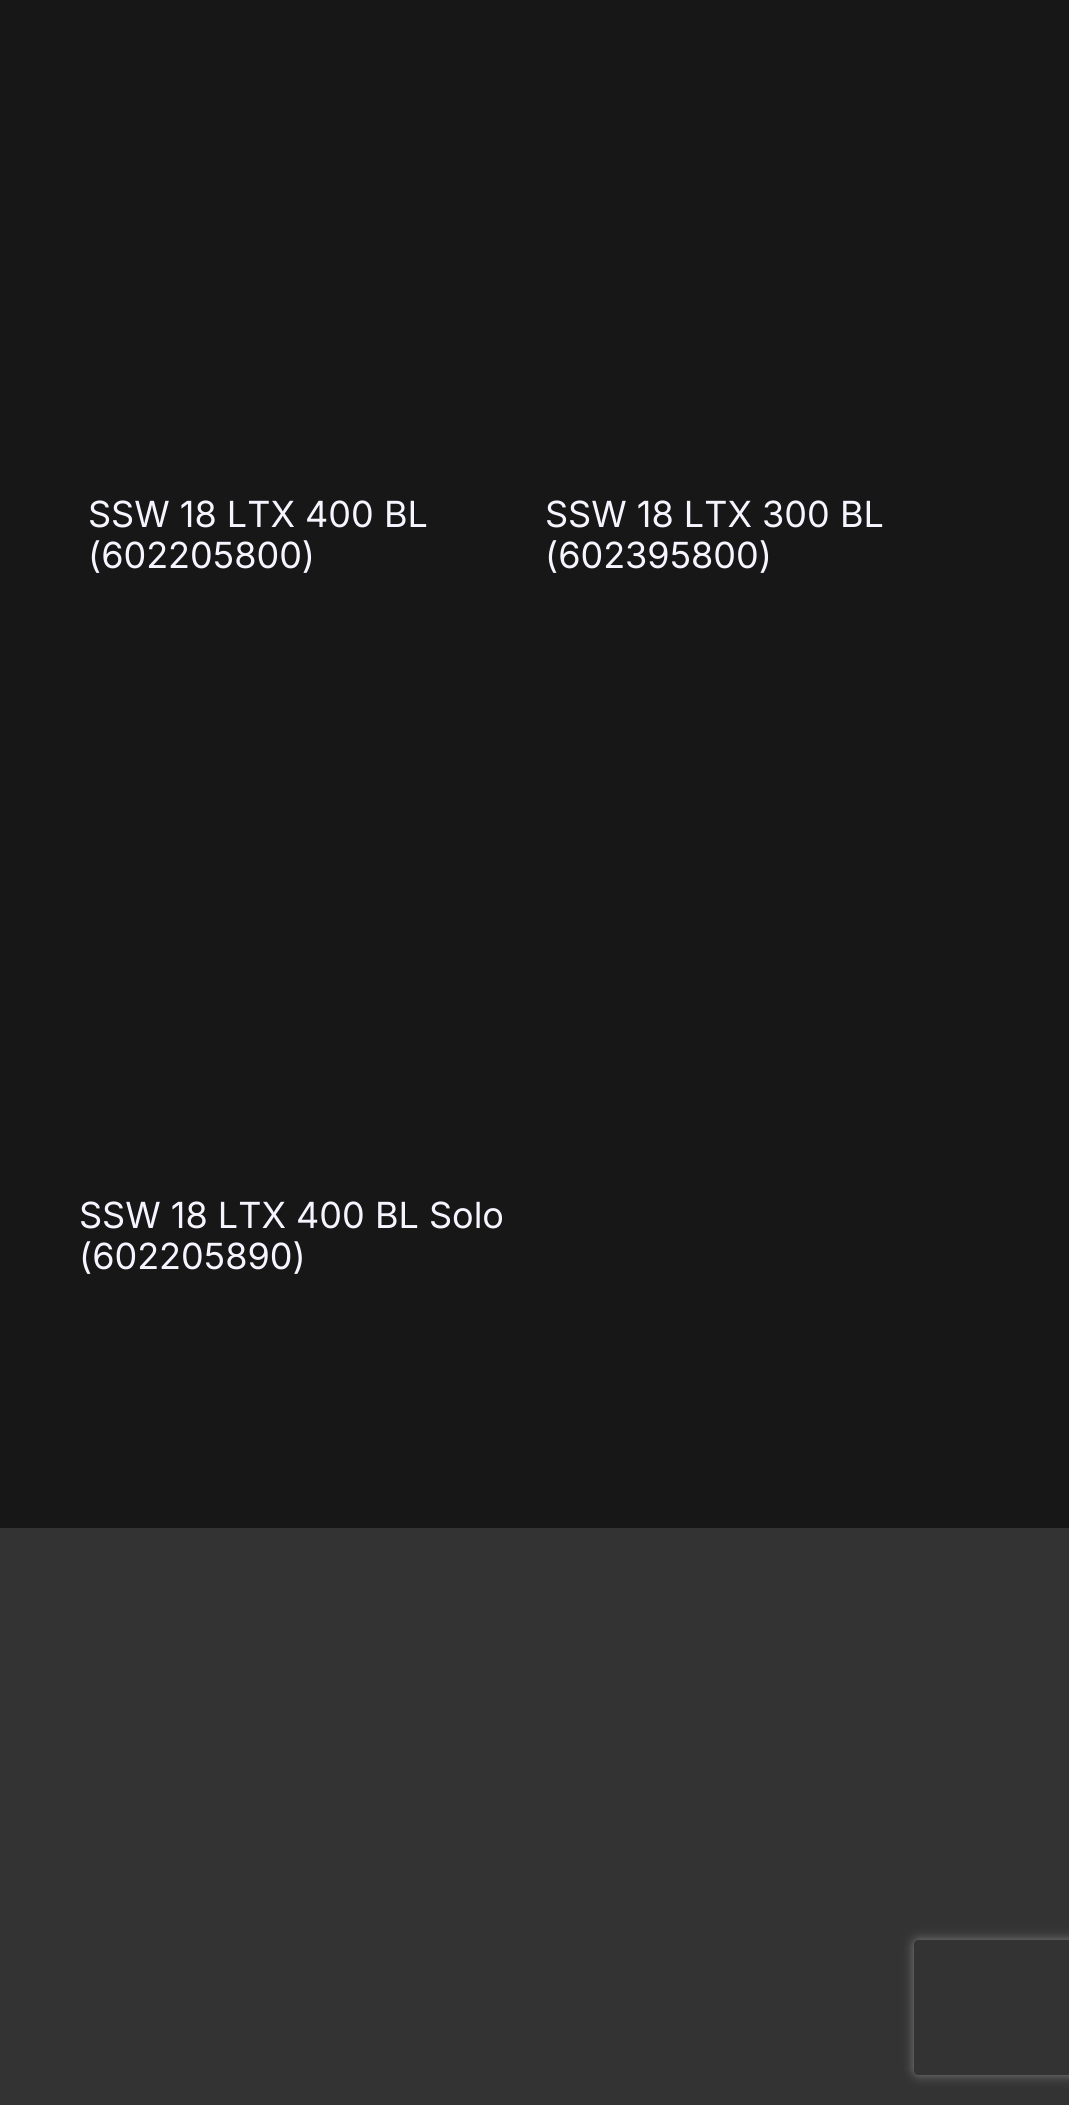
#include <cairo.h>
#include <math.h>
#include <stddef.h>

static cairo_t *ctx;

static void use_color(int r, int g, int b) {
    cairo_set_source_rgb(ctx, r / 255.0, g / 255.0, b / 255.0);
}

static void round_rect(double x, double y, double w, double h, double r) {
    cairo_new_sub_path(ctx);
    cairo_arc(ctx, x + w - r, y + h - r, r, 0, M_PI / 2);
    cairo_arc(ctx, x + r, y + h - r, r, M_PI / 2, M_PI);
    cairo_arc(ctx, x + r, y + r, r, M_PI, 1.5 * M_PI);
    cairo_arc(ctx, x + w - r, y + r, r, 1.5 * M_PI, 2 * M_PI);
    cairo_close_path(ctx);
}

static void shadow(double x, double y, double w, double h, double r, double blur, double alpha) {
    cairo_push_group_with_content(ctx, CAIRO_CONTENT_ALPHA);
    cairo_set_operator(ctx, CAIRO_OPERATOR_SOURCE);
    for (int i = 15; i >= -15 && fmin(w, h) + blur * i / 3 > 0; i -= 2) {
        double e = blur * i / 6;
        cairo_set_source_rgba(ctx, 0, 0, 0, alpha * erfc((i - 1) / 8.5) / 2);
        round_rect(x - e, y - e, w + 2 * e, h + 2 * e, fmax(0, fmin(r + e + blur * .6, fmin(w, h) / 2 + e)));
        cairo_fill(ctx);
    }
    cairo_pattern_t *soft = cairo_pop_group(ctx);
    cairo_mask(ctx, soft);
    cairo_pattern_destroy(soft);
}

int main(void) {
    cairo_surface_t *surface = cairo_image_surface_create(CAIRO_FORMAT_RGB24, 1069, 2105);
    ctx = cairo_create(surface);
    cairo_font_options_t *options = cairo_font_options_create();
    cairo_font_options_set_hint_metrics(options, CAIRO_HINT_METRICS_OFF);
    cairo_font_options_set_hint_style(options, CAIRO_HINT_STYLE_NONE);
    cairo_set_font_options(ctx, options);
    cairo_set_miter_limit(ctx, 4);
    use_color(23, 23, 23);
    cairo_paint(ctx);
    cairo_select_font_face(ctx, "Inter", CAIRO_FONT_SLANT_NORMAL, CAIRO_FONT_WEIGHT_NORMAL);
    cairo_set_font_size(ctx, 36);
    use_color(246, 245, 255);
    cairo_move_to(ctx, 88, 527);
    cairo_show_text(ctx, "SSW 18 LTX 400 BL");
    cairo_move_to(ctx, 88, 568);
    cairo_show_text(ctx, "(602205800)");
    cairo_move_to(ctx, 545, 527);
    cairo_show_text(ctx, "SSW 18 LTX 300 BL");
    cairo_move_to(ctx, 545, 568);
    cairo_show_text(ctx, "(602395800)");
    cairo_move_to(ctx, 79, 1228);
    cairo_show_text(ctx, "SSW 18 LTX 400 BL Solo");
    cairo_move_to(ctx, 79, 1269);
    cairo_show_text(ctx, "(602205890)");
    use_color(51, 51, 51);
    cairo_rectangle(ctx, 0, 1528, 1069, 577);
    cairo_fill(ctx);
    cairo_save(ctx);
    cairo_set_fill_rule(ctx, CAIRO_FILL_RULE_EVEN_ODD);
    cairo_new_path(ctx);
    cairo_move_to(ctx, 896, 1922);
    cairo_line_to(ctx, 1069, 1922);
    cairo_line_to(ctx, 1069, 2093);
    cairo_line_to(ctx, 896, 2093);
    cairo_close_path(ctx);
    cairo_move_to(ctx, 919, 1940);
    cairo_line_to(ctx, 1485, 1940);
    cairo_curve_to(ctx, 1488, 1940, 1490, 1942, 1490, 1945);
    cairo_line_to(ctx, 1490, 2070);
    cairo_curve_to(ctx, 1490, 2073, 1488, 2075, 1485, 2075);
    cairo_line_to(ctx, 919, 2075);
    cairo_curve_to(ctx, 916, 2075, 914, 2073, 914, 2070);
    cairo_line_to(ctx, 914, 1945);
    cairo_curve_to(ctx, 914, 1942, 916, 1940, 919, 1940);
    cairo_close_path(ctx);
    cairo_clip(ctx);
    use_color(128, 128, 128);
    shadow(914, 1940, 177, 135, 5, 5.5, 1);
    cairo_restore(ctx);
    cairo_surface_write_to_png(surface, "result.png");
    cairo_font_options_destroy(options);
    cairo_destroy(ctx);
    cairo_surface_destroy(surface);
    return 0;
}
